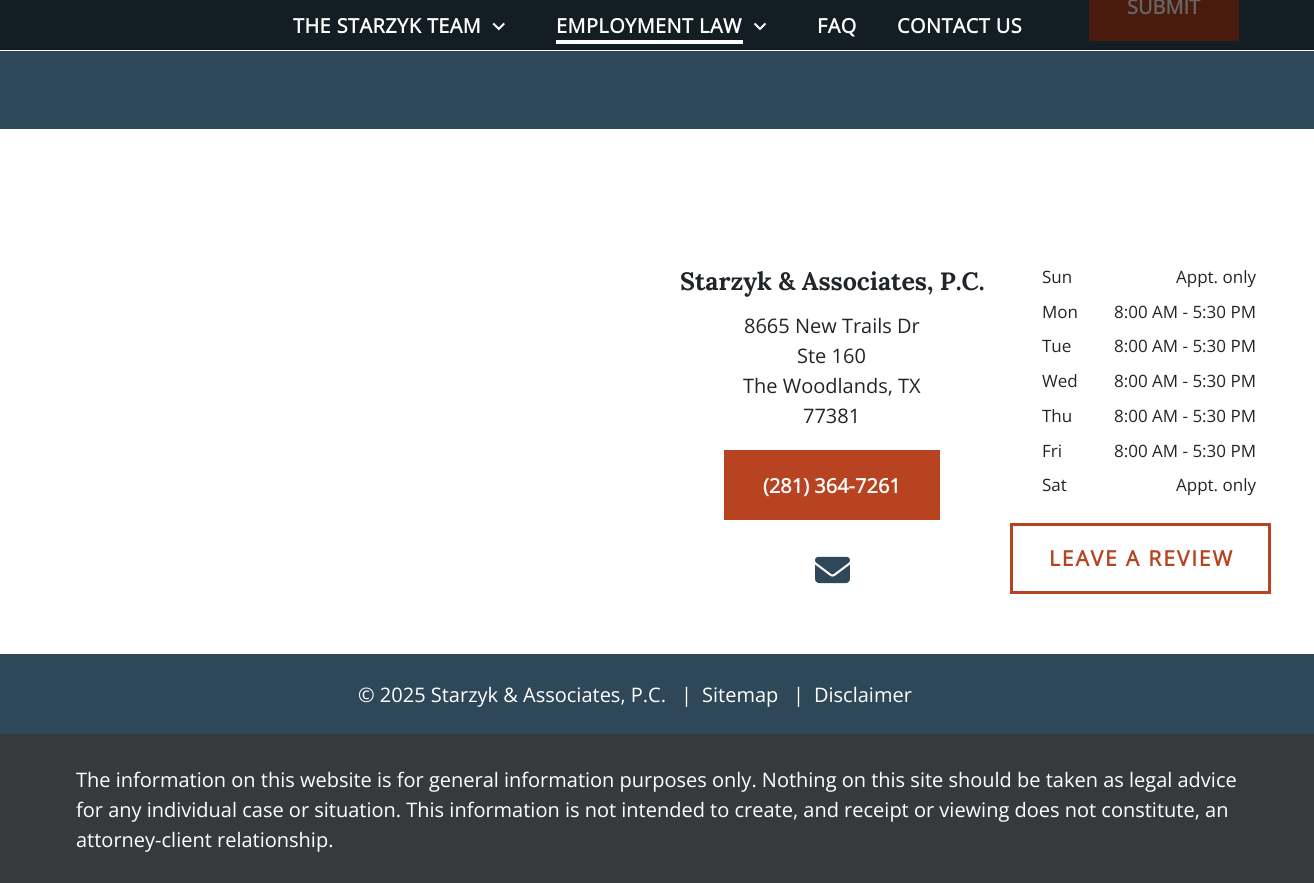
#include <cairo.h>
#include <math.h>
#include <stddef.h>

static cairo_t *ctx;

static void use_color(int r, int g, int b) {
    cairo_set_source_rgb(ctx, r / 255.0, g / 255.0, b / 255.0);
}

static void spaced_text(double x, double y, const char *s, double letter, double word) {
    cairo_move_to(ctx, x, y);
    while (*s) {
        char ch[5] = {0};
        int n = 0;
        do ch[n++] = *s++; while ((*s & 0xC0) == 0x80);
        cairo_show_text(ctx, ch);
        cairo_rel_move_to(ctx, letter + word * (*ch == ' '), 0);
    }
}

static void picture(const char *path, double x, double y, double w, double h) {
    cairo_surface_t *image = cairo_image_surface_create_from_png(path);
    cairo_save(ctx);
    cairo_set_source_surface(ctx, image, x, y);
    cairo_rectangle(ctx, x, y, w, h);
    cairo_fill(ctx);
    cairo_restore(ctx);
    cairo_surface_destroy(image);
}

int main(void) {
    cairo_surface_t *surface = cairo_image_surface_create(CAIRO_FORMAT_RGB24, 1314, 883);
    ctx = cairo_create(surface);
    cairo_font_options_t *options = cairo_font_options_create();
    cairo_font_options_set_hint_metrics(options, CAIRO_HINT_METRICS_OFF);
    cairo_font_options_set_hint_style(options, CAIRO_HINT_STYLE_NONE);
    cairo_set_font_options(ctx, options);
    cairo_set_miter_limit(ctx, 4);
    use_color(255, 255, 255);
    cairo_paint(ctx);
    use_color(46, 72, 89);
    cairo_rectangle(ctx, 0, 51, 1314, 78);
    cairo_fill(ctx);
    use_color(18, 29, 36);
    cairo_rectangle(ctx, 0, 0, 1314, 50);
    cairo_fill(ctx);
    use_color(73, 27, 13);
    cairo_rectangle(ctx, 1089, 0, 150, 41);
    cairo_fill(ctx);
    cairo_select_font_face(ctx, "Open Sans", CAIRO_FONT_SLANT_NORMAL, CAIRO_FONT_WEIGHT_BOLD);
    cairo_set_font_size(ctx, 20);
    use_color(102, 102, 102);
    cairo_move_to(ctx, 1127, 14);
    cairo_show_text(ctx, "SUBMIT");
    cairo_select_font_face(ctx, "Lora", CAIRO_FONT_SLANT_NORMAL, CAIRO_FONT_WEIGHT_BOLD);
    cairo_set_font_size(ctx, 25);
    use_color(33, 37, 41);
    cairo_move_to(ctx, 680, 290);
    cairo_show_text(ctx, "Starzyk & Associates, P.C.");
    cairo_select_font_face(ctx, "Open Sans", CAIRO_FONT_SLANT_NORMAL, CAIRO_FONT_WEIGHT_NORMAL);
    cairo_set_font_size(ctx, 20);
    cairo_move_to(ctx, 744, 333);
    cairo_show_text(ctx, "8665 New Trails Dr");
    cairo_move_to(ctx, 797, 363);
    cairo_show_text(ctx, "Ste 160");
    cairo_move_to(ctx, 743, 393);
    cairo_show_text(ctx, "The Woodlands, TX");
    cairo_move_to(ctx, 803, 423);
    cairo_show_text(ctx, "77381");
    use_color(183, 67, 32);
    cairo_rectangle(ctx, 724, 450, 216, 70);
    cairo_fill(ctx);
    cairo_select_font_face(ctx, "Open Sans", CAIRO_FONT_SLANT_NORMAL, CAIRO_FONT_WEIGHT_BOLD);
    use_color(255, 255, 255);
    cairo_move_to(ctx, 763, 493);
    cairo_show_text(ctx, "(281) 364-7261");
    picture("img1.png", 815, 556, 35, 28);
    cairo_select_font_face(ctx, "Open Sans", CAIRO_FONT_SLANT_NORMAL, CAIRO_FONT_WEIGHT_NORMAL);
    cairo_set_font_size(ctx, 17);
    use_color(33, 37, 41);
    cairo_move_to(ctx, 1042, 283);
    cairo_show_text(ctx, "Sun");
    cairo_move_to(ctx, 1176, 283);
    cairo_show_text(ctx, "Appt. only");
    cairo_move_to(ctx, 1042, 318);
    cairo_show_text(ctx, "Mon");
    cairo_move_to(ctx, 1114, 318);
    cairo_show_text(ctx, "8:00 AM - 5:30 PM");
    cairo_move_to(ctx, 1042, 352);
    cairo_show_text(ctx, "Tue");
    cairo_move_to(ctx, 1114, 352);
    cairo_show_text(ctx, "8:00 AM - 5:30 PM");
    cairo_move_to(ctx, 1042, 387);
    cairo_show_text(ctx, "Wed");
    cairo_move_to(ctx, 1114, 387);
    cairo_show_text(ctx, "8:00 AM - 5:30 PM");
    cairo_move_to(ctx, 1042, 422);
    cairo_show_text(ctx, "Thu");
    cairo_move_to(ctx, 1114, 422);
    cairo_show_text(ctx, "8:00 AM - 5:30 PM");
    cairo_move_to(ctx, 1042, 457);
    cairo_show_text(ctx, "Fri");
    cairo_move_to(ctx, 1114, 457);
    cairo_show_text(ctx, "8:00 AM - 5:30 PM");
    cairo_move_to(ctx, 1042, 491);
    cairo_show_text(ctx, "Sat");
    cairo_move_to(ctx, 1176, 491);
    cairo_show_text(ctx, "Appt. only");
    cairo_rectangle(ctx, 1011.5, 524.5, 258, 68);
    use_color(183, 67, 32);
    cairo_set_line_width(ctx, 3);
    cairo_stroke(ctx);
    cairo_select_font_face(ctx, "Open Sans", CAIRO_FONT_SLANT_NORMAL, CAIRO_FONT_WEIGHT_BOLD);
    cairo_set_font_size(ctx, 21.25);
    spaced_text(1049, 566, "LEAVE A REVIEW", 1.75, 0);
    use_color(46, 72, 89);
    cairo_rectangle(ctx, 0, 654, 1314, 80);
    cairo_fill(ctx);
    cairo_select_font_face(ctx, "Open Sans", CAIRO_FONT_SLANT_NORMAL, CAIRO_FONT_WEIGHT_NORMAL);
    cairo_set_font_size(ctx, 20);
    use_color(255, 255, 255);
    cairo_move_to(ctx, 358, 702);
    cairo_show_text(ctx, "© 2025 Starzyk & Associates, P.C.");
    cairo_move_to(ctx, 681, 702);
    cairo_show_text(ctx, "|");
    cairo_move_to(ctx, 702, 702);
    cairo_show_text(ctx, "Sitemap");
    cairo_move_to(ctx, 793, 702);
    cairo_show_text(ctx, "|");
    cairo_move_to(ctx, 814, 702);
    cairo_show_text(ctx, "Disclaimer");
    use_color(55, 58, 60);
    cairo_rectangle(ctx, 0, 734, 1314, 149);
    cairo_fill(ctx);
    use_color(255, 255, 255);
    cairo_move_to(ctx, 76, 787);
    cairo_show_text(ctx, "The information on this website is for general information purposes only. Nothing on this site should be taken as legal advice");
    cairo_move_to(ctx, 76, 817);
    cairo_show_text(ctx, "for any individual case or situation. This information is not intended to create, and receipt or viewing does not constitute, an");
    cairo_move_to(ctx, 76, 847);
    cairo_show_text(ctx, "attorney-client relationship.");
    cairo_select_font_face(ctx, "Open Sans", CAIRO_FONT_SLANT_NORMAL, CAIRO_FONT_WEIGHT_BOLD);
    spaced_text(293, 33, "THE STARZYK TEAM", 0.4, 0);
    picture("img2.png", 492, 22, 13, 9);
    spaced_text(556, 33, "EMPLOYMENT LAW", 0.4, 0);
    cairo_rectangle(ctx, 556, 40, 187, 4);
    cairo_fill(ctx);
    picture("img3.png", 753, 22, 14, 9);
    spaced_text(817, 33, "FAQ", 0.4, 0);
    spaced_text(897, 33, "CONTACT US", 0.4, 0);
    cairo_surface_write_to_png(surface, "result.png");
    cairo_font_options_destroy(options);
    cairo_destroy(ctx);
    cairo_surface_destroy(surface);
    return 0;
}
